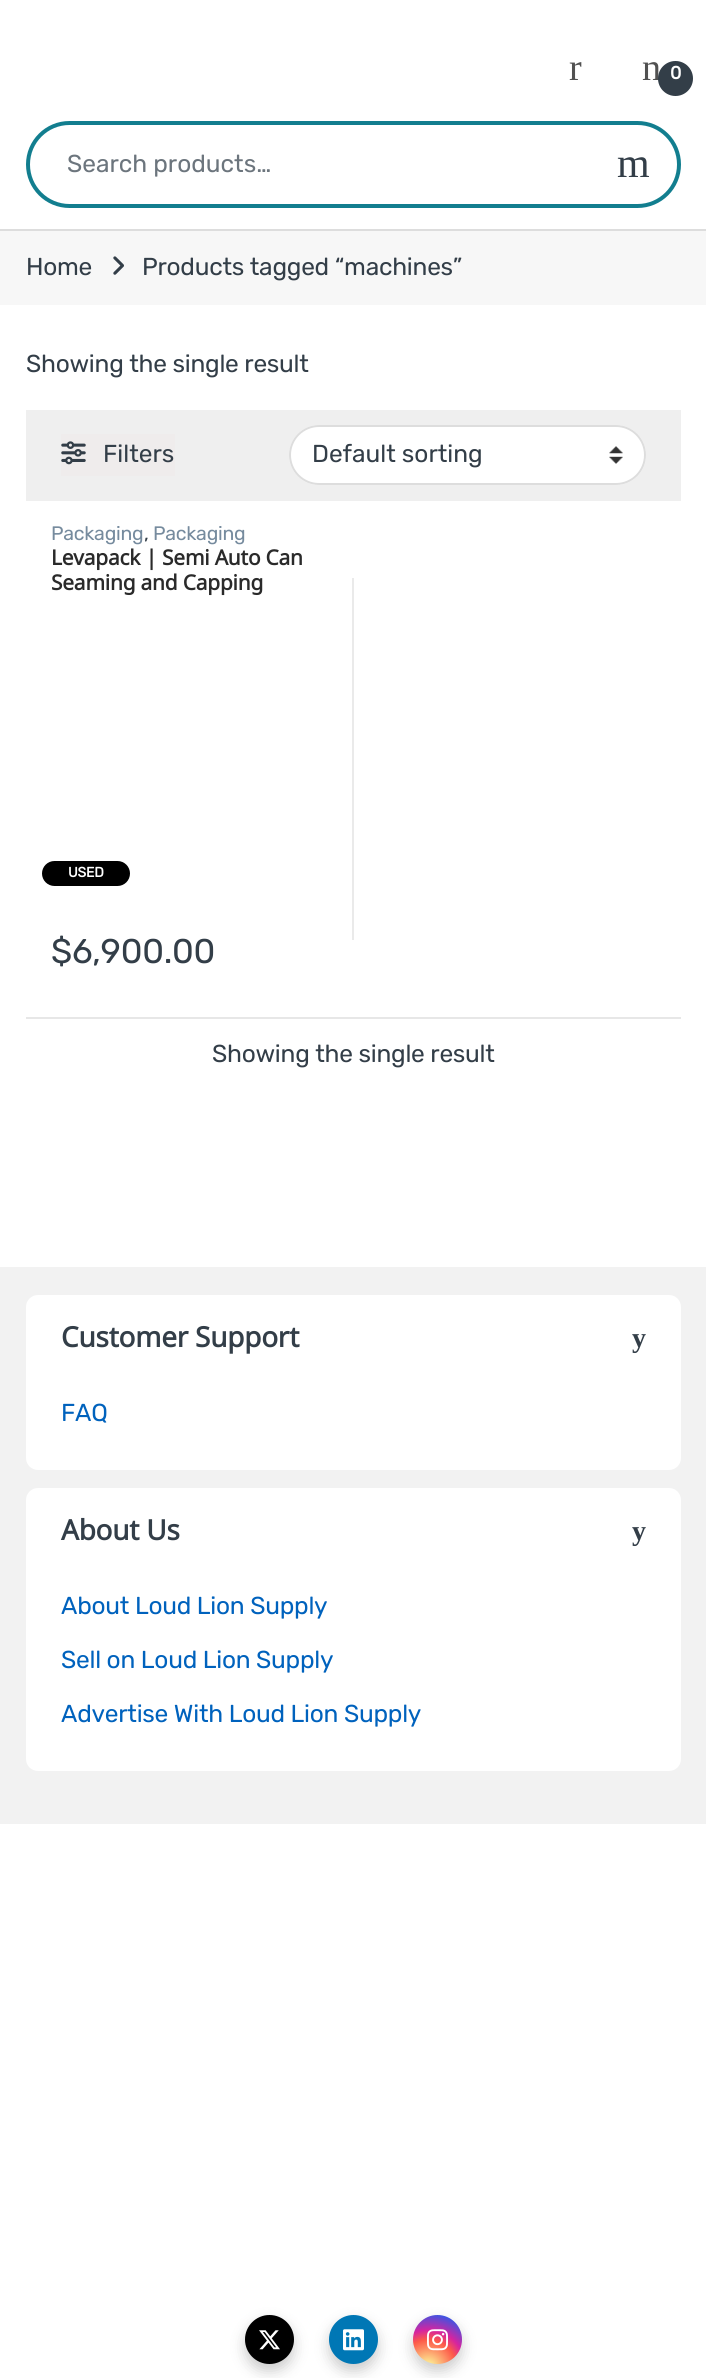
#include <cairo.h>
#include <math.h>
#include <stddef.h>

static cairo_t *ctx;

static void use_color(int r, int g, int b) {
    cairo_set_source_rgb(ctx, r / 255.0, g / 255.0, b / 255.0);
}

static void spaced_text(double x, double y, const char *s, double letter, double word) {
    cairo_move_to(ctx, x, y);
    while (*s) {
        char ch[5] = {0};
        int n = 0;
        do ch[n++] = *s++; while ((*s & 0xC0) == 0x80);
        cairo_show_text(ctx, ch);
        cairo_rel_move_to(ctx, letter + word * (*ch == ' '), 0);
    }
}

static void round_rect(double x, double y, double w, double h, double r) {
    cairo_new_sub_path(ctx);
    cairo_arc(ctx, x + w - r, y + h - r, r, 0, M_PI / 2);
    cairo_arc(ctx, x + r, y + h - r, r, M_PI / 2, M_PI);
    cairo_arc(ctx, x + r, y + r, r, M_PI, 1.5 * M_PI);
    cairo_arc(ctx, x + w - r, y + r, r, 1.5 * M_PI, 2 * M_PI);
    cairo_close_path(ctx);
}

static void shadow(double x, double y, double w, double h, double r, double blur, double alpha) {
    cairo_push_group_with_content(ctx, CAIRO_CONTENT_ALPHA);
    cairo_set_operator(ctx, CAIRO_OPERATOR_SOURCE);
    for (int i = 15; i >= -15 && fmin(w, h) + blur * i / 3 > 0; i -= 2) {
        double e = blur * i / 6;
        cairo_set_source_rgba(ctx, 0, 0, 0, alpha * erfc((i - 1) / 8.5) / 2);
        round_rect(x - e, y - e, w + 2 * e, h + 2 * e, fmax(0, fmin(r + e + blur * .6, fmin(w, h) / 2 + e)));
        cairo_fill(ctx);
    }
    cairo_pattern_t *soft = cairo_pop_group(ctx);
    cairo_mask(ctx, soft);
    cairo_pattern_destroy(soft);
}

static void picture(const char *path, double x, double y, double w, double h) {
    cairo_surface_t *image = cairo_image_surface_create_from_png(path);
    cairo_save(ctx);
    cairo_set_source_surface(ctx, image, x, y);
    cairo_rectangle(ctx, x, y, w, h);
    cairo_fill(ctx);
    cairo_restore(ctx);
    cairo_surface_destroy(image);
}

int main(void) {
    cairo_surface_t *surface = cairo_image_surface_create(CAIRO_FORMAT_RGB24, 706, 2378);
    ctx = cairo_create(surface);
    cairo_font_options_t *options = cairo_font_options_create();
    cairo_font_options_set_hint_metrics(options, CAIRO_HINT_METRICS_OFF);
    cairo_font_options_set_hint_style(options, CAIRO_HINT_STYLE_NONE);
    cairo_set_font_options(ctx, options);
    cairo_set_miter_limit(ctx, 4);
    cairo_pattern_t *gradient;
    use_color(255, 255, 255);
    cairo_paint(ctx);
    use_color(221, 221, 221);
    cairo_rectangle(ctx, 0, 229, 706, 2);
    cairo_fill(ctx);
    cairo_select_font_face(ctx, "Liberation Serif", CAIRO_FONT_SLANT_NORMAL, CAIRO_FONT_WEIGHT_NORMAL);
    cairo_set_font_size(ctx, 38);
    use_color(81, 81, 81);
    spaced_text(569, 80, "r", -0.25, 0);
    spaced_text(642, 80, "n", -0.25, 0);
    use_color(51, 62, 72);
    cairo_new_path(ctx);
    cairo_arc(ctx, 675.5, 78.5, 17.5, 0, 2 * M_PI);
    cairo_fill(ctx);
    cairo_select_font_face(ctx, "Rubik", CAIRO_FONT_SLANT_NORMAL, CAIRO_FONT_WEIGHT_BOLD);
    cairo_set_font_size(ctx, 18);
    use_color(255, 255, 255);
    spaced_text(670, 79, "0", -0.25, 0);
    round_rect(28, 123, 651, 83, 41.5);
    use_color(18, 126, 143);
    cairo_set_line_width(ctx, 4);
    cairo_stroke(ctx);
    cairo_select_font_face(ctx, "Rubik Light", CAIRO_FONT_SLANT_NORMAL, CAIRO_FONT_WEIGHT_NORMAL);
    cairo_set_font_size(ctx, 24.5);
    use_color(108, 117, 125);
    cairo_move_to(ctx, 67, 172);
    cairo_show_text(ctx, "Search products…");
    cairo_select_font_face(ctx, "Liberation Serif", CAIRO_FONT_SLANT_NORMAL, CAIRO_FONT_WEIGHT_NORMAL);
    cairo_set_font_size(ctx, 42);
    use_color(51, 62, 72);
    cairo_move_to(ctx, 617, 177);
    cairo_show_text(ctx, "m");
    use_color(247, 247, 247);
    cairo_rectangle(ctx, 0, 231, 706, 74);
    cairo_fill(ctx);
    cairo_select_font_face(ctx, "Rubik Light", CAIRO_FONT_SLANT_NORMAL, CAIRO_FONT_WEIGHT_NORMAL);
    cairo_set_font_size(ctx, 24.5);
    use_color(51, 62, 72);
    spaced_text(26, 275, "Home", -0.25, 0);
    picture("img1.png", 113, 256, 11, 19);
    spaced_text(142, 275, "Products tagged “machines”", -0.25, 0);
    spaced_text(26, 372, "Showing the single result", -0.25, 0);
    use_color(239, 239, 239);
    cairo_rectangle(ctx, 26, 410, 655, 91);
    cairo_fill(ctx);
    use_color(239, 236, 236);
    cairo_rectangle(ctx, 61, 434, 114, 42);
    cairo_fill(ctx);
    picture("img2.png", 61, 441, 25, 24);
    use_color(51, 62, 72);
    cairo_move_to(ctx, 103, 462);
    cairo_show_text(ctx, "Filters");
    use_color(255, 255, 255);
    round_rect(289, 425, 357, 60, 30);
    cairo_fill(ctx);
    picture("img3.png", 609, 446, 14, 18);
    round_rect(290, 426, 355, 58, 29);
    use_color(221, 221, 221);
    cairo_set_line_width(ctx, 2);
    cairo_stroke(ctx);
    use_color(51, 62, 72);
    cairo_move_to(ctx, 312, 462);
    cairo_show_text(ctx, "Default sorting");
    cairo_set_font_size(ctx, 19.5);
    use_color(118, 139, 158);
    spaced_text(51, 540, "Packaging", -0.25, 0);
    use_color(51, 62, 72);
    spaced_text(144, 540, ",", -0.25, 0);
    use_color(118, 139, 158);
    spaced_text(153, 540, "Packaging", -0.25, 0);
    cairo_select_font_face(ctx, "Noto Sans", CAIRO_FONT_SLANT_NORMAL, CAIRO_FONT_WEIGHT_BOLD);
    cairo_set_font_size(ctx, 21);
    use_color(42, 42, 42);
    spaced_text(51, 565, "Levapack | Semi Auto Can", -0.25, 0);
    spaced_text(51, 590, "Seaming and Capping", -0.25, 0);
    use_color(0, 0, 0);
    round_rect(42, 861, 88, 25, 12.5);
    cairo_fill(ctx);
    cairo_select_font_face(ctx, "Rubik", CAIRO_FONT_SLANT_NORMAL, CAIRO_FONT_WEIGHT_BOLD);
    cairo_set_font_size(ctx, 14);
    use_color(255, 255, 255);
    spaced_text(68, 877, "USED", -0.25, 0);
    cairo_select_font_face(ctx, "Rubik Light", CAIRO_FONT_SLANT_NORMAL, CAIRO_FONT_WEIGHT_NORMAL);
    cairo_set_font_size(ctx, 34.25);
    use_color(51, 62, 72);
    spaced_text(51, 963, "$6,900.00", -0.25, 0);
    use_color(234, 234, 234);
    cairo_rectangle(ctx, 352, 578, 2, 362);
    cairo_fill(ctx);
    use_color(231, 231, 231);
    cairo_rectangle(ctx, 26, 1017, 655, 2);
    cairo_fill(ctx);
    cairo_set_font_size(ctx, 24.5);
    use_color(51, 62, 72);
    spaced_text(212, 1062, "Showing the single result", -0.25, 0);
    use_color(242, 242, 242);
    cairo_rectangle(ctx, 0, 1267, 706, 557);
    cairo_fill(ctx);
    use_color(255, 255, 255);
    round_rect(26, 1295, 655, 175, 12);
    cairo_fill(ctx);
    cairo_select_font_face(ctx, "Noto Sans", CAIRO_FONT_SLANT_NORMAL, CAIRO_FONT_WEIGHT_BOLD);
    cairo_set_font_size(ctx, 28);
    use_color(51, 62, 72);
    spaced_text(61, 1347, "Customer Support", -0.25, 0);
    cairo_select_font_face(ctx, "Liberation Serif", CAIRO_FONT_SLANT_NORMAL, CAIRO_FONT_WEIGHT_BOLD);
    spaced_text(632, 1347, "y", -0.25, 0);
    cairo_select_font_face(ctx, "Rubik Light", CAIRO_FONT_SLANT_NORMAL, CAIRO_FONT_WEIGHT_NORMAL);
    cairo_set_font_size(ctx, 24.5);
    use_color(0, 98, 189);
    spaced_text(61, 1421, "FAQ", -0.25, 0);
    use_color(255, 255, 255);
    round_rect(26, 1488, 655, 283, 12);
    cairo_fill(ctx);
    cairo_select_font_face(ctx, "Noto Sans", CAIRO_FONT_SLANT_NORMAL, CAIRO_FONT_WEIGHT_BOLD);
    cairo_set_font_size(ctx, 28);
    use_color(51, 62, 72);
    spaced_text(61, 1540, "About Us", -0.25, 0);
    cairo_select_font_face(ctx, "Liberation Serif", CAIRO_FONT_SLANT_NORMAL, CAIRO_FONT_WEIGHT_BOLD);
    spaced_text(632, 1540, "y", -0.25, 0);
    cairo_select_font_face(ctx, "Rubik Light", CAIRO_FONT_SLANT_NORMAL, CAIRO_FONT_WEIGHT_NORMAL);
    cairo_set_font_size(ctx, 24.5);
    use_color(0, 98, 189);
    spaced_text(61, 1614, "About Loud Lion Supply", -0.25, 0);
    spaced_text(61, 1668, "Sell on Loud Lion Supply", -0.25, 0);
    spaced_text(61, 1722, "Advertise With Loud Lion Supply", -0.25, 0);
    use_color(0, 0, 0);
    shadow(245, 2322, 49, 49, 24.5, 7, 0.2);
    use_color(0, 0, 0);
    cairo_arc(ctx, 269.5, 2339.5, 24.5, 0, 2 * M_PI);
    cairo_fill(ctx);
    picture("img4.png", 259, 2330, 21, 20);
    use_color(0, 0, 0);
    shadow(329, 2322, 49, 49, 24.5, 7, 0.2);
    use_color(0, 119, 181);
    cairo_arc(ctx, 353.5, 2339.5, 24.5, 0, 2 * M_PI);
    cairo_fill(ctx);
    picture("img5.png", 343, 2329, 21, 22);
    use_color(0, 0, 0);
    shadow(413, 2322, 49, 49, 24.5, 7, 0.2);
    gradient = cairo_pattern_create_radial(428, 2368, 0, 428, 2368, 63);
    cairo_pattern_add_color_stop_rgba(gradient, 0, 0.992, 0.957, 0.592, 1);
    cairo_pattern_add_color_stop_rgba(gradient, 0.05, 0.992, 0.957, 0.592, 1);
    cairo_pattern_add_color_stop_rgba(gradient, 0.45, 0.992, 0.349, 0.286, 1);
    cairo_pattern_add_color_stop_rgba(gradient, 0.6, 0.839, 0.141, 0.624, 1);
    cairo_pattern_add_color_stop_rgba(gradient, 0.9, 0.157, 0.353, 0.922, 1);
    cairo_set_source(ctx, gradient);
    cairo_pattern_destroy(gradient);
    cairo_arc(ctx, 437.5, 2339.5, 24.5, 0, 2 * M_PI);
    cairo_fill(ctx);
    picture("img6.png", 427, 2329, 21, 22);
    cairo_surface_write_to_png(surface, "result.png");
    cairo_font_options_destroy(options);
    cairo_destroy(ctx);
    cairo_surface_destroy(surface);
    return 0;
}
